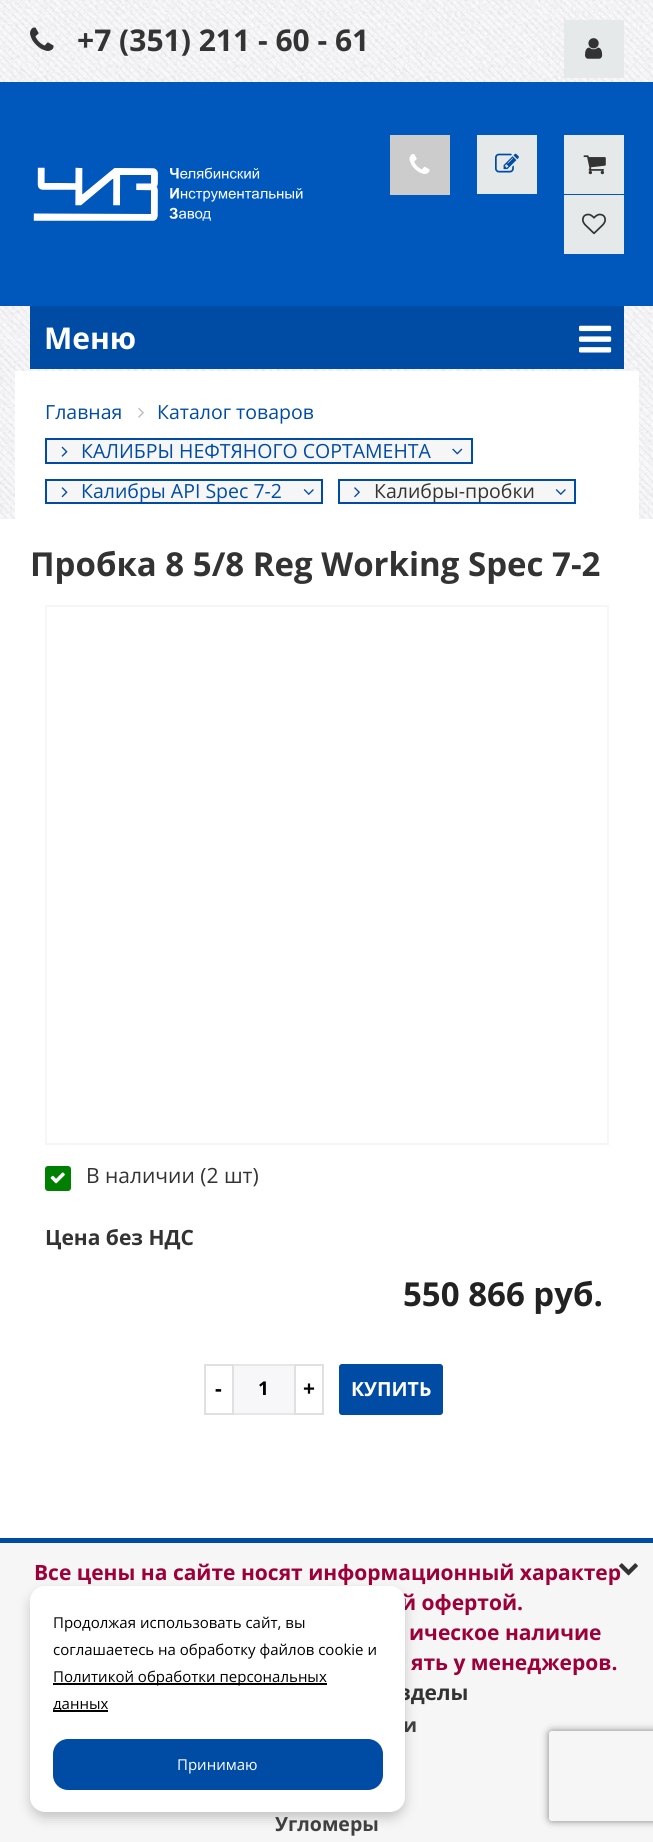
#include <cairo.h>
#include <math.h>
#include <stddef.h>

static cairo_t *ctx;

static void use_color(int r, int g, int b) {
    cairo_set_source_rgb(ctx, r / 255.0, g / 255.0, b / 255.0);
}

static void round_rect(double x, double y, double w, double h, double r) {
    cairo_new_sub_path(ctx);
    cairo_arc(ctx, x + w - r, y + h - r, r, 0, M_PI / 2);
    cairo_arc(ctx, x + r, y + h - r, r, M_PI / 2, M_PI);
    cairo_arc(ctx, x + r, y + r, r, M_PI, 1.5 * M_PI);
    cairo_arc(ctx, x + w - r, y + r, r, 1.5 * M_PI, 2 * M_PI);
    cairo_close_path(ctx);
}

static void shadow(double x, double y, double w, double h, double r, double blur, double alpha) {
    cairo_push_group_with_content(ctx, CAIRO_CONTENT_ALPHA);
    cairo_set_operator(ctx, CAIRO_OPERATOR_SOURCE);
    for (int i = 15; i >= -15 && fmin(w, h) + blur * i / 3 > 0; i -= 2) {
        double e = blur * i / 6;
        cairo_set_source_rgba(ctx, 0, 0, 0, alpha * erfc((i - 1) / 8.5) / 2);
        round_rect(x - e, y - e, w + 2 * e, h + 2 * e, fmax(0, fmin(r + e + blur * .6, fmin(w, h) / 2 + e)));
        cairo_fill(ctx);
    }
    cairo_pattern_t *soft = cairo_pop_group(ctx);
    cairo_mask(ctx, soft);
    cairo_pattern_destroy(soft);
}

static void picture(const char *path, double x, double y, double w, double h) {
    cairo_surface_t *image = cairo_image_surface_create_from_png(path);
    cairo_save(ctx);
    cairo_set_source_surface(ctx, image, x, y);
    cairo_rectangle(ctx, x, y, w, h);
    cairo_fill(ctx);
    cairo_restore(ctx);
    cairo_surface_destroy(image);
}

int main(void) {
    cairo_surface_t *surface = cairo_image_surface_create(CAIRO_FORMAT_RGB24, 653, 1842);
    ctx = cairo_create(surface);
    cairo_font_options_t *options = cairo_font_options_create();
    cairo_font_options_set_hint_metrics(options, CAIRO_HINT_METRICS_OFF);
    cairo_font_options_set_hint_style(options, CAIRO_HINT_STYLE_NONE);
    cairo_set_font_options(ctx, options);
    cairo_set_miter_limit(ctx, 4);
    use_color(255, 255, 255);
    cairo_paint(ctx);
    picture("img1.png", 0, 0, 653, 519);
    picture("img2.png", 30, 27, 24, 24);
    cairo_select_font_face(ctx, "Open Sans", CAIRO_FONT_SLANT_NORMAL, CAIRO_FONT_WEIGHT_BOLD);
    cairo_set_font_size(ctx, 30);
    use_color(51, 51, 51);
    cairo_move_to(ctx, 77, 51);
    cairo_show_text(ctx, "+7 (351) 211 - 60 - 61");
    use_color(229, 233, 234);
    cairo_rectangle(ctx, 564, 20, 60, 58);
    cairo_fill(ctx);
    picture("img3.png", 585, 38, 18, 21);
    use_color(0, 88, 188);
    cairo_rectangle(ctx, 0, 82, 653, 224);
    cairo_fill(ctx);
    picture("img4.png", 33, 167, 270, 54);
    use_color(204, 204, 204);
    cairo_rectangle(ctx, 390, 135, 60, 60);
    cairo_fill(ctx);
    picture("img5.png", 409, 154, 21, 20);
    use_color(229, 233, 234);
    cairo_rectangle(ctx, 477, 135, 60, 59);
    cairo_fill(ctx);
    picture("img6.png", 495, 153, 24, 20);
    cairo_rectangle(ctx, 564, 135, 60, 59);
    cairo_fill(ctx);
    picture("img7.png", 583, 155, 23, 20);
    cairo_rectangle(ctx, 564, 195, 60, 59);
    cairo_fill(ctx);
    picture("img8.png", 582, 213, 24, 22);
    use_color(0, 76, 165);
    cairo_rectangle(ctx, 30, 306, 594, 63);
    cairo_fill(ctx);
    use_color(255, 255, 255);
    cairo_move_to(ctx, 44, 349);
    cairo_show_text(ctx, "Меню");
    picture("img9.png", 579, 325, 33, 28);
    cairo_rectangle(ctx, 15, 371, 624, 148);
    cairo_fill(ctx);
    cairo_select_font_face(ctx, "Open Sans", CAIRO_FONT_SLANT_NORMAL, CAIRO_FONT_WEIGHT_NORMAL);
    cairo_set_font_size(ctx, 19.5);
    use_color(0, 76, 165);
    cairo_move_to(ctx, 45, 419);
    cairo_show_text(ctx, "Главная");
    picture("img10.png", 138, 407, 6, 11);
    cairo_move_to(ctx, 157, 419);
    cairo_show_text(ctx, "Каталог товаров");
    use_color(246, 246, 247);
    cairo_rectangle(ctx, 46, 439, 426, 24);
    cairo_fill_preserve(ctx);
    use_color(0, 76, 165);
    cairo_stroke(ctx);
    picture("img11.png", 61, 446, 7, 11);
    cairo_move_to(ctx, 81, 458);
    cairo_show_text(ctx, "КАЛИБРЫ НЕФТЯНОГО СОРТАМЕНТА");
    picture("img12.png", 452, 448, 11, 7);
    use_color(246, 246, 247);
    cairo_rectangle(ctx, 46, 480, 276, 23);
    cairo_fill_preserve(ctx);
    use_color(0, 76, 165);
    cairo_stroke(ctx);
    picture("img13.png", 61, 487, 7, 11);
    cairo_move_to(ctx, 81, 498);
    cairo_show_text(ctx, "Калибры API Spec 7-2");
    picture("img14.png", 303, 489, 11, 6);
    use_color(246, 246, 247);
    cairo_rectangle(ctx, 339, 480, 236, 23);
    cairo_fill_preserve(ctx);
    use_color(0, 76, 165);
    cairo_stroke(ctx);
    picture("img15.png", 354, 487, 6, 11);
    use_color(51, 51, 51);
    cairo_move_to(ctx, 374, 498);
    cairo_show_text(ctx, "Калибры-пробки");
    picture("img14.png", 555, 489, 11, 6);
    cairo_select_font_face(ctx, "Open Sans", CAIRO_FONT_SLANT_NORMAL, CAIRO_FONT_WEIGHT_BOLD);
    cairo_set_font_size(ctx, 33);
    cairo_move_to(ctx, 30, 576);
    cairo_show_text(ctx, "Пробка 8 5/8 Reg Working Spec 7-2");
    cairo_rectangle(ctx, 46, 606, 562, 538);
    use_color(246, 246, 246);
    cairo_stroke(ctx);
    use_color(0, 128, 0);
    round_rect(45, 1166, 26, 25, 3);
    cairo_fill(ctx);
    picture("img16.png", 50, 1172, 15, 12);
    cairo_select_font_face(ctx, "Open Sans", CAIRO_FONT_SLANT_NORMAL, CAIRO_FONT_WEIGHT_NORMAL);
    cairo_set_font_size(ctx, 21);
    use_color(51, 51, 51);
    cairo_move_to(ctx, 86, 1183);
    cairo_show_text(ctx, "В наличии (2 шт)");
    cairo_select_font_face(ctx, "Open Sans", CAIRO_FONT_SLANT_NORMAL, CAIRO_FONT_WEIGHT_BOLD);
    cairo_move_to(ctx, 45, 1245);
    cairo_show_text(ctx, "Цена без НДС");
    cairo_set_font_size(ctx, 33);
    use_color(34, 34, 34);
    cairo_move_to(ctx, 403, 1306);
    cairo_show_text(ctx, "550 866 руб.");
    cairo_rectangle(ctx, 205, 1365, 28, 49);
    use_color(224, 224, 224);
    cairo_stroke(ctx);
    cairo_set_font_size(ctx, 21);
    use_color(0, 0, 0);
    cairo_move_to(ctx, 215, 1396);
    cairo_show_text(ctx, "-");
    use_color(247, 247, 249);
    cairo_rectangle(ctx, 234, 1366, 60, 47);
    cairo_fill(ctx);
    use_color(231, 231, 231);
    cairo_rectangle(ctx, 234, 1364, 60, 2);
    cairo_fill(ctx);
    cairo_rectangle(ctx, 234, 1413, 60, 2);
    cairo_fill(ctx);
    cairo_set_font_size(ctx, 19);
    use_color(0, 0, 0);
    cairo_move_to(ctx, 258, 1395);
    cairo_show_text(ctx, "1");
    cairo_rectangle(ctx, 295, 1365, 28, 49);
    use_color(224, 224, 224);
    cairo_stroke(ctx);
    cairo_set_font_size(ctx, 21);
    use_color(0, 0, 0);
    cairo_move_to(ctx, 303, 1396);
    cairo_show_text(ctx, "+");
    use_color(0, 76, 165);
    round_rect(339, 1364, 104, 51, 3);
    cairo_fill(ctx);
    cairo_set_font_size(ctx, 19.5);
    use_color(255, 255, 255);
    cairo_move_to(ctx, 351, 1396);
    cairo_show_text(ctx, "КУПИТЬ");
    use_color(246, 246, 247);
    cairo_rectangle(ctx, 0, 1543, 653, 299);
    cairo_fill(ctx);
    use_color(0, 76, 165);
    cairo_rectangle(ctx, 0, 1538, 653, 5);
    cairo_fill(ctx);
    cairo_set_font_size(ctx, 21);
    use_color(157, 0, 57);
    cairo_move_to(ctx, 34, 1580);
    cairo_show_text(ctx, "Все цены на сайте носят информационный характер");
    picture("img17.png", 619, 1563, 19, 13);
    cairo_move_to(ctx, 401, 1610);
    cairo_show_text(ctx, "й офертой.");
    cairo_move_to(ctx, 409, 1640);
    cairo_show_text(ctx, "ическое наличие");
    cairo_move_to(ctx, 411, 1670);
    cairo_show_text(ctx, "ять у менеджеров.");
    use_color(51, 51, 51);
    cairo_move_to(ctx, 399, 1700);
    cairo_show_text(ctx, "зделы");
    cairo_set_font_size(ctx, 19.5);
    use_color(65, 65, 65);
    cairo_move_to(ctx, 403, 1732);
    cairo_show_text(ctx, "и");
    cairo_move_to(ctx, 275, 1831);
    cairo_show_text(ctx, "Угломеры");
    use_color(0, 0, 0);
    shadow(30, 1592, 375, 226, 15, 6, 0.2);
    use_color(255, 255, 255);
    round_rect(30, 1586, 375, 226, 15);
    cairo_fill(ctx);
    cairo_select_font_face(ctx, "Open Sans", CAIRO_FONT_SLANT_NORMAL, CAIRO_FONT_WEIGHT_NORMAL);
    cairo_set_font_size(ctx, 15);
    use_color(0, 0, 0);
    cairo_move_to(ctx, 53, 1628);
    cairo_show_text(ctx, "Продолжая использовать сайт, вы");
    cairo_move_to(ctx, 53, 1655);
    cairo_show_text(ctx, "соглашаетесь на обработку файлов cookie и");
    cairo_rectangle(ctx, 53, 1683, 274, 2);
    cairo_fill(ctx);
    cairo_move_to(ctx, 53, 1682);
    cairo_show_text(ctx, "Политикой обработки персональных");
    cairo_rectangle(ctx, 53, 1710, 55, 2);
    cairo_fill(ctx);
    cairo_move_to(ctx, 53, 1709);
    cairo_show_text(ctx, "данных");
    use_color(0, 76, 165);
    round_rect(53, 1739, 330, 51, 15);
    cairo_fill(ctx);
    use_color(255, 255, 255);
    cairo_move_to(ctx, 177, 1770);
    cairo_show_text(ctx, "Принимаю");
    cairo_save(ctx);
    cairo_set_fill_rule(ctx, CAIRO_FILL_RULE_EVEN_ODD);
    cairo_new_path(ctx);
    cairo_move_to(ctx, 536, 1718);
    cairo_line_to(ctx, 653, 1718);
    cairo_line_to(ctx, 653, 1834);
    cairo_line_to(ctx, 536, 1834);
    cairo_close_path(ctx);
    cairo_move_to(ctx, 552, 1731);
    cairo_line_to(ctx, 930, 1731);
    cairo_curve_to(ctx, 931.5, 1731, 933, 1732.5, 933, 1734);
    cairo_line_to(ctx, 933, 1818);
    cairo_curve_to(ctx, 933, 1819.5, 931.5, 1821, 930, 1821);
    cairo_line_to(ctx, 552, 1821);
    cairo_curve_to(ctx, 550.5, 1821, 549, 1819.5, 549, 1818);
    cairo_line_to(ctx, 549, 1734);
    cairo_curve_to(ctx, 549, 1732.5, 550.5, 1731, 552, 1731);
    cairo_close_path(ctx);
    cairo_clip(ctx);
    use_color(128, 128, 128);
    shadow(549, 1731, 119, 90, 3, 4, 1);
    cairo_restore(ctx);
    cairo_surface_write_to_png(surface, "result.png");
    cairo_font_options_destroy(options);
    cairo_destroy(ctx);
    cairo_surface_destroy(surface);
    return 0;
}
